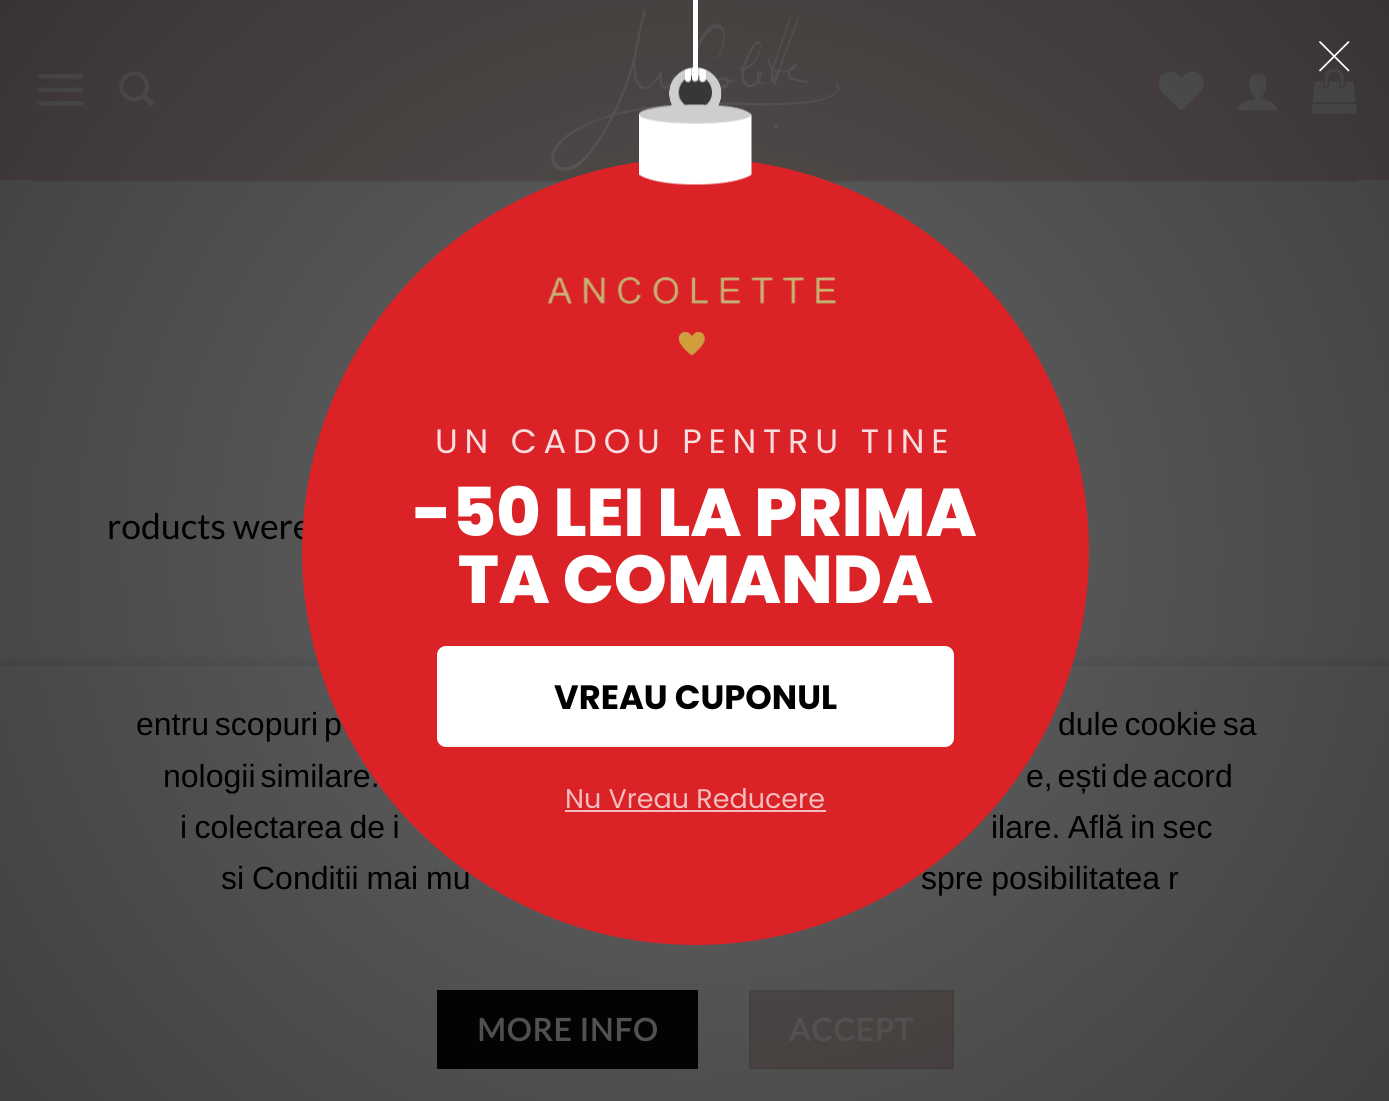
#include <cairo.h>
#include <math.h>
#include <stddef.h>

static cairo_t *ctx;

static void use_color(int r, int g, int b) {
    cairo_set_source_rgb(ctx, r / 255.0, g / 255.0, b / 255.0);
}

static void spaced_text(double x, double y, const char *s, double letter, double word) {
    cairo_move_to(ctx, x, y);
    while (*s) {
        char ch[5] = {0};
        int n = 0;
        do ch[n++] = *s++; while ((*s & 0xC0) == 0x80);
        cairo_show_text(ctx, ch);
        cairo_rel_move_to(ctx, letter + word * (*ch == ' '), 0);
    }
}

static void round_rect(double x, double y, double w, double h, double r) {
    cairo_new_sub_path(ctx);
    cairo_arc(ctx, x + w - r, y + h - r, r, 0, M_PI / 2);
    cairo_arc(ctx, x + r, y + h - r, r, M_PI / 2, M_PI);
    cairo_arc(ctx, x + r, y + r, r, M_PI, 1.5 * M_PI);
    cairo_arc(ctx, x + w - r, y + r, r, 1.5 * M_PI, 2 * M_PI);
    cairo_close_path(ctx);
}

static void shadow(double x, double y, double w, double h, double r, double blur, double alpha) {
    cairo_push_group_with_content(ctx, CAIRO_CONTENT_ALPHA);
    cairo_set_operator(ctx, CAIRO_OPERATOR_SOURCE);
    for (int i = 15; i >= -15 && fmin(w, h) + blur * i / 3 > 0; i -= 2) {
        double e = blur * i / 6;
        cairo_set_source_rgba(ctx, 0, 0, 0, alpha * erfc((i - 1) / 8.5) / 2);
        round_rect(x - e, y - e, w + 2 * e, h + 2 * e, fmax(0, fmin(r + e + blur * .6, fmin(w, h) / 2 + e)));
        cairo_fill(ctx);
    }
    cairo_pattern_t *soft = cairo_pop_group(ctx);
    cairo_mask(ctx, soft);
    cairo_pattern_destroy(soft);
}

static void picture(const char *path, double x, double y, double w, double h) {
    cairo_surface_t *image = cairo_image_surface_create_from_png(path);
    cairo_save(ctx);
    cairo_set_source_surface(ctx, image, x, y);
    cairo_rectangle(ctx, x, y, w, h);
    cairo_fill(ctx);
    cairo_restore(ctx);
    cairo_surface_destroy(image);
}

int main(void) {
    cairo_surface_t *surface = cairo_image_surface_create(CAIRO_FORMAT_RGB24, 1389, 1101);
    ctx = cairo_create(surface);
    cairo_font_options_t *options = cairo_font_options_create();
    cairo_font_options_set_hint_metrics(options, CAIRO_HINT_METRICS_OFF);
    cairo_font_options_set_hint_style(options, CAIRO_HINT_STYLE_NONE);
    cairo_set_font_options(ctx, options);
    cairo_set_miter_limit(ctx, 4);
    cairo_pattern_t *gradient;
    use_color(255, 255, 255);
    cairo_paint(ctx);
    use_color(229, 209, 208);
    cairo_rectangle(ctx, 0, 0, 1389, 180);
    cairo_fill(ctx);
    picture("img1.png", 38, 74, 46, 32);
    picture("img2.png", 119, 71, 35, 35);
    picture("img3.png", 551, 9, 289, 162);
    picture("img4.png", 1158, 71, 46, 40);
    picture("img5.png", 1238, 73, 40, 38);
    picture("img6.png", 1311, 68, 46, 46);
    use_color(230, 230, 230);
    cairo_rectangle(ctx, 34, 180, 1323, 2);
    cairo_fill(ctx);
    cairo_select_font_face(ctx, "Lato", CAIRO_FONT_SLANT_NORMAL, CAIRO_FONT_WEIGHT_NORMAL);
    cairo_set_font_size(ctx, 35.5);
    use_color(0, 0, 0);
    cairo_move_to(ctx, 107, 539);
    cairo_show_text(ctx, "roducts were");
    use_color(0, 0, 0);
    shadow(0, 666, 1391, 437, 0, 10, 0.14);
    use_color(255, 255, 255);
    cairo_rectangle(ctx, 0, 666, 1389, 435);
    cairo_fill(ctx);
    cairo_select_font_face(ctx, "Liberation Sans", CAIRO_FONT_SLANT_NORMAL, CAIRO_FONT_WEIGHT_NORMAL);
    cairo_set_font_size(ctx, 32);
    use_color(0, 0, 0);
    spaced_text(136, 735, "entru scopuri p", 0, -3);
    spaced_text(1058, 735, "dule cookie sa", 0, -3);
    spaced_text(163, 787, "nologii similare.", 0, -4);
    spaced_text(1026, 787, "e, ești de acord", 0, -4);
    spaced_text(180, 838, "i colectarea de i", 0, -1.5);
    spaced_text(991, 838, "ilare. Află in sec", 0, -1.5);
    spaced_text(221, 889, "si Conditii mai mu", 0, -1);
    spaced_text(921, 889, "spre posibilitatea r", 0, -1);
    use_color(10, 10, 10);
    cairo_rectangle(ctx, 437, 990, 261, 79);
    cairo_fill(ctx);
    cairo_select_font_face(ctx, "Lato", CAIRO_FONT_SLANT_NORMAL, CAIRO_FONT_WEIGHT_BOLD);
    cairo_set_font_size(ctx, 31);
    use_color(255, 255, 255);
    spaced_text(477, 1041, "MORE INFO", 1, 0);
    use_color(229, 209, 208);
    cairo_rectangle(ctx, 750, 991, 203, 77);
    cairo_fill_preserve(ctx);
    use_color(218, 199, 198);
    cairo_stroke(ctx);
    use_color(255, 255, 255);
    spaced_text(789, 1041, "ACCEPT", 1, 0);
    gradient = cairo_pattern_create_radial(695, 551, 0, 695, 551, 887);
    cairo_pattern_add_color_stop_rgba(gradient, 0, 0, 0, 0, 0.6);
    cairo_pattern_add_color_stop_rgba(gradient, 1, 0, 0, 0, 0.75);
    cairo_set_source(ctx, gradient);
    cairo_pattern_destroy(gradient);
    cairo_rectangle(ctx, 0, 0, 1389, 1101);
    cairo_fill(ctx);
    use_color(255, 255, 255);
    cairo_rectangle(ctx, 693, 0, 5, 69);
    cairo_fill(ctx);
    cairo_new_path(ctx);
    cairo_move_to(ctx, 1320, 42);
    cairo_line_to(ctx, 1348.5, 70.5);
    cairo_move_to(ctx, 1348.5, 42);
    cairo_line_to(ctx, 1320, 70.5);
    cairo_set_line_width(ctx, 1.7);
    cairo_set_line_cap(ctx, CAIRO_LINE_CAP_ROUND);
    cairo_stroke(ctx);
    use_color(218, 34, 39);
    cairo_arc(ctx, 695.5, 551.5, 393.5, 0, 2 * M_PI);
    cairo_fill(ctx);
    picture("img7.png", 639, 67, 113, 118);
    picture("img8.png", 547, 276, 289, 80);
    cairo_select_font_face(ctx, "Poppins", CAIRO_FONT_SLANT_NORMAL, CAIRO_FONT_WEIGHT_NORMAL);
    cairo_set_font_size(ctx, 33.75);
    use_color(249, 222, 223);
    spaced_text(435, 453, "UN CADOU PENTRU TINE", 6.75, 0);
    cairo_select_font_face(ctx, "Poppins ExtraBold", CAIRO_FONT_SLANT_NORMAL, CAIRO_FONT_WEIGHT_NORMAL);
    cairo_set_font_size(ctx, 67.5);
    use_color(255, 255, 255);
    cairo_move_to(ctx, 413, 536);
    cairo_show_text(ctx, "-50 LEI LA PRIMA");
    cairo_move_to(ctx, 458, 603);
    cairo_show_text(ctx, "TA COMANDA");
    round_rect(437, 646, 517, 101, 9);
    cairo_fill(ctx);
    cairo_select_font_face(ctx, "Poppins", CAIRO_FONT_SLANT_NORMAL, CAIRO_FONT_WEIGHT_BOLD);
    cairo_set_font_size(ctx, 33.75);
    use_color(0, 0, 0);
    cairo_move_to(ctx, 554, 709);
    cairo_show_text(ctx, "VREAU CUPONUL");
    cairo_select_font_face(ctx, "Poppins", CAIRO_FONT_SLANT_NORMAL, CAIRO_FONT_WEIGHT_NORMAL);
    cairo_set_font_size(ctx, 27);
    use_color(244, 189, 190);
    cairo_move_to(ctx, 565, 808);
    cairo_show_text(ctx, "Nu Vreau Reducere");
    cairo_rectangle(ctx, 565, 810, 261, 2);
    cairo_fill(ctx);
    cairo_surface_write_to_png(surface, "result.png");
    cairo_font_options_destroy(options);
    cairo_destroy(ctx);
    cairo_surface_destroy(surface);
    return 0;
}
